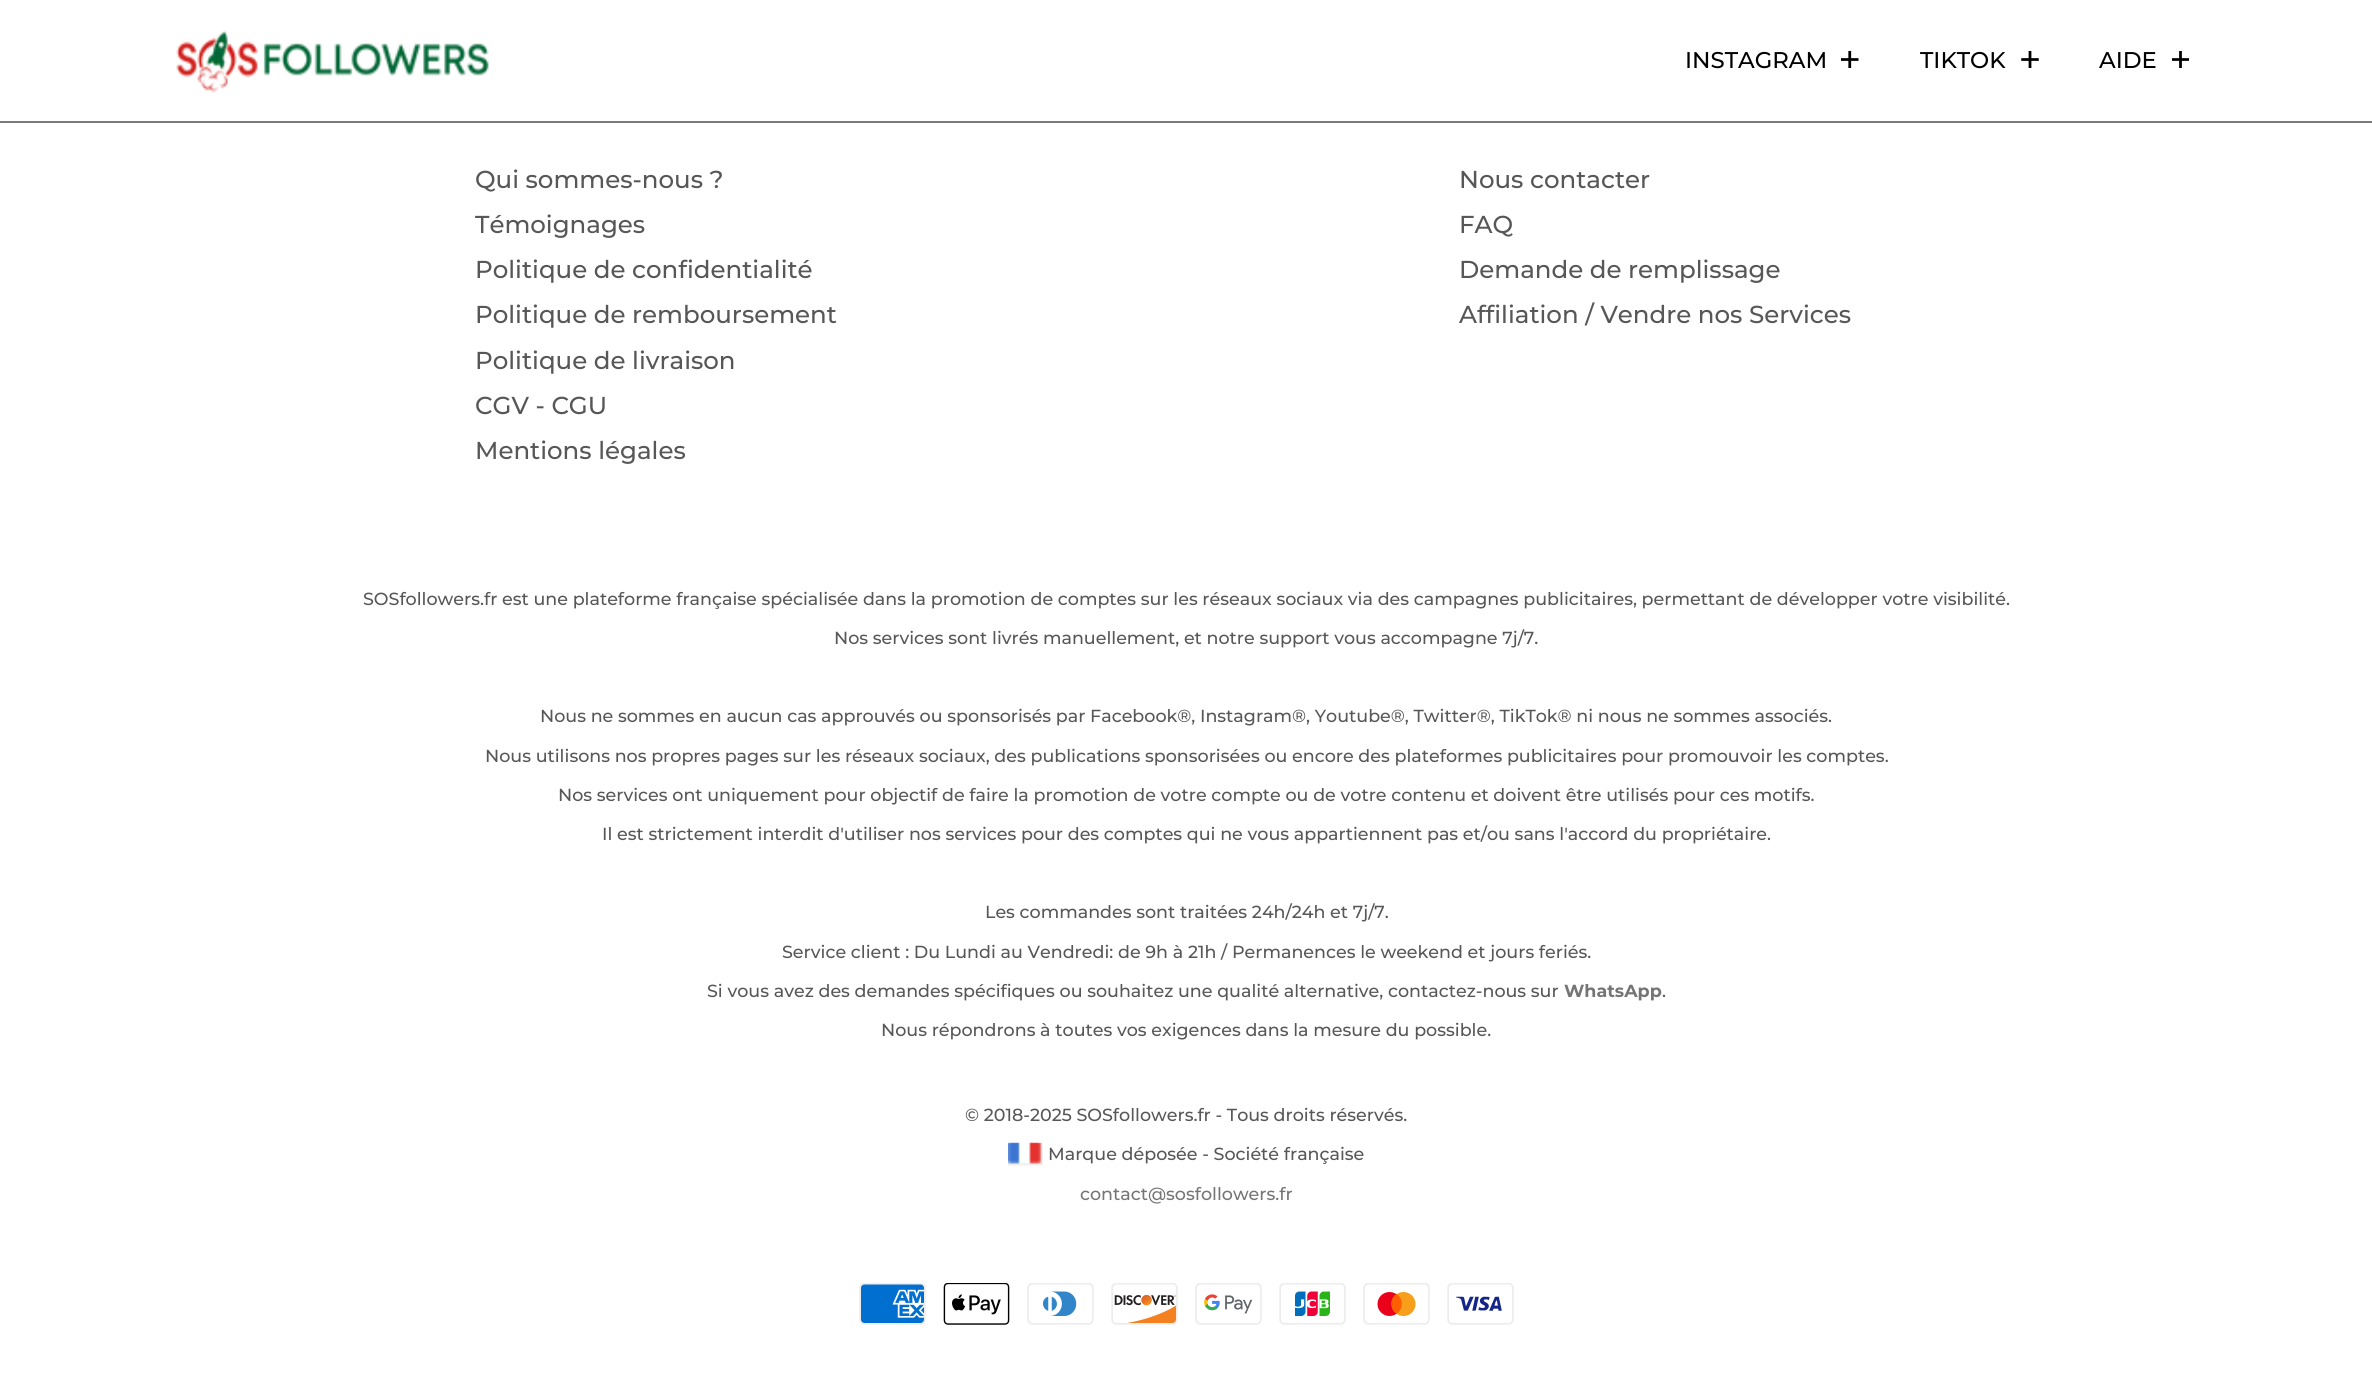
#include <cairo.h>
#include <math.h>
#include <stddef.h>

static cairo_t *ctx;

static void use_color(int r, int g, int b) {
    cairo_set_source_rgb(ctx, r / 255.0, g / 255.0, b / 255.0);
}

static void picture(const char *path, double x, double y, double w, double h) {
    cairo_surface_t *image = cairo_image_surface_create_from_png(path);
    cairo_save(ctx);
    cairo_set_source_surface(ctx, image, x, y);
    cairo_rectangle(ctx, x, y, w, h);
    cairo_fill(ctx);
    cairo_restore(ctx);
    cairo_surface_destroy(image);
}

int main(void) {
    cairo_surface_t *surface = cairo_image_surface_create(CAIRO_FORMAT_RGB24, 2372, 1392);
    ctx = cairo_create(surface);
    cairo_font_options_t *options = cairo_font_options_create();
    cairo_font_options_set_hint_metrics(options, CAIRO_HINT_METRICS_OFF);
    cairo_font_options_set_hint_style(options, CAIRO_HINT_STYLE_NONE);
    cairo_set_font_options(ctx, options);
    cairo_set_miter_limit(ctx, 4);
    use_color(255, 255, 255);
    cairo_paint(ctx);
    use_color(122, 122, 122);
    cairo_rectangle(ctx, 0, 121, 2372, 2);
    cairo_fill(ctx);
    picture("img1.png", 176, 30, 313, 63);
    cairo_select_font_face(ctx, "Montserrat Medium", CAIRO_FONT_SLANT_NORMAL, CAIRO_FONT_WEIGHT_NORMAL);
    cairo_set_font_size(ctx, 22.75);
    use_color(0, 0, 0);
    cairo_move_to(ctx, 1685, 68);
    cairo_show_text(ctx, "INSTAGRAM");
    picture("img2.png", 1841, 51, 18, 17);
    cairo_move_to(ctx, 1920, 68);
    cairo_show_text(ctx, "TIKTOK");
    picture("img3.png", 2021, 51, 18, 17);
    cairo_move_to(ctx, 2099, 68);
    cairo_show_text(ctx, "AIDE");
    picture("img4.png", 2172, 51, 17, 17);
    cairo_set_font_size(ctx, 24.5);
    use_color(87, 87, 87);
    cairo_move_to(ctx, 475, 188);
    cairo_show_text(ctx, "Qui sommes-nous ?");
    cairo_move_to(ctx, 475, 233);
    cairo_show_text(ctx, "Témoignages");
    cairo_move_to(ctx, 475, 278);
    cairo_show_text(ctx, "Politique de confidentialité");
    cairo_move_to(ctx, 475, 323);
    cairo_show_text(ctx, "Politique de remboursement");
    cairo_move_to(ctx, 475, 369);
    cairo_show_text(ctx, "Politique de livraison");
    cairo_move_to(ctx, 475, 414);
    cairo_show_text(ctx, "CGV - CGU");
    cairo_move_to(ctx, 475, 459);
    cairo_show_text(ctx, "Mentions légales");
    cairo_move_to(ctx, 1459, 188);
    cairo_show_text(ctx, "Nous contacter");
    cairo_move_to(ctx, 1459, 233);
    cairo_show_text(ctx, "FAQ");
    cairo_move_to(ctx, 1459, 278);
    cairo_show_text(ctx, "Demande de remplissage");
    cairo_move_to(ctx, 1459, 323);
    cairo_show_text(ctx, "Affiliation / Vendre nos Services");
    cairo_set_font_size(ctx, 17.5);
    cairo_move_to(ctx, 363, 605);
    cairo_show_text(ctx, "SOSfollowers.fr est une plateforme française spécialisée dans la promotion de comptes sur les réseaux sociaux via des campagnes publicitaires, permettant de développer votre visibilité.");
    cairo_move_to(ctx, 834, 644);
    cairo_show_text(ctx, "Nos services sont livrés manuellement, et notre support vous accompagne 7j/7.");
    cairo_move_to(ctx, 540, 722);
    cairo_show_text(ctx, "Nous ne sommes en aucun cas approuvés ou sponsorisés par Facebook®, Instagram®, Youtube®, Twitter®, TikTok® ni nous ne sommes associés.");
    cairo_move_to(ctx, 485, 762);
    cairo_show_text(ctx, "Nous utilisons nos propres pages sur les réseaux sociaux, des publications sponsorisées ou encore des plateformes publicitaires pour promouvoir les comptes.");
    cairo_move_to(ctx, 558, 801);
    cairo_show_text(ctx, "Nos services ont uniquement pour objectif de faire la promotion de votre compte ou de votre contenu et doivent être utilisés pour ces motifs.");
    cairo_move_to(ctx, 602, 840);
    cairo_show_text(ctx, "Il est strictement interdit d'utiliser nos services pour des comptes qui ne vous appartiennent pas et/ou sans l'accord du propriétaire.");
    cairo_move_to(ctx, 985, 918);
    cairo_show_text(ctx, "Les commandes sont traitées 24h/24h et 7j/7.");
    cairo_move_to(ctx, 782, 958);
    cairo_show_text(ctx, "Service client : Du Lundi au Vendredi: de 9h à 21h / Permanences le weekend et jours feriés.");
    cairo_move_to(ctx, 707, 997);
    cairo_show_text(ctx, "Si vous avez des demandes spécifiques ou souhaitez une qualité alternative, contactez-nous sur");
    cairo_select_font_face(ctx, "Montserrat", CAIRO_FONT_SLANT_NORMAL, CAIRO_FONT_WEIGHT_BOLD);
    use_color(117, 117, 117);
    cairo_move_to(ctx, 1564, 997);
    cairo_show_text(ctx, "WhatsApp");
    cairo_select_font_face(ctx, "Montserrat Medium", CAIRO_FONT_SLANT_NORMAL, CAIRO_FONT_WEIGHT_NORMAL);
    use_color(87, 87, 87);
    cairo_move_to(ctx, 1662, 997);
    cairo_show_text(ctx, ".");
    cairo_move_to(ctx, 881, 1036);
    cairo_show_text(ctx, "Nous répondrons à toutes vos exigences dans la mesure du possible.");
    cairo_move_to(ctx, 965, 1121);
    cairo_show_text(ctx, "© 2018-2025 SOSfollowers.fr - Tous droits réservés.");
    picture("img5.png", 1008, 1142, 35, 24);
    cairo_move_to(ctx, 1048, 1160);
    cairo_show_text(ctx, "Marque déposée - Société française");
    use_color(117, 117, 117);
    cairo_move_to(ctx, 1080, 1200);
    cairo_show_text(ctx, "contact@sosfollowers.fr");
    picture("img6.png", 859, 1283, 67, 42);
    picture("img7.png", 943, 1283, 67, 42);
    picture("img8.png", 1027, 1283, 67, 42);
    picture("img9.png", 1111, 1283, 67, 42);
    picture("img10.png", 1195, 1283, 67, 42);
    picture("img11.png", 1279, 1283, 67, 42);
    picture("img12.png", 1363, 1283, 67, 42);
    picture("img13.png", 1447, 1283, 67, 42);
    cairo_surface_write_to_png(surface, "result.png");
    cairo_font_options_destroy(options);
    cairo_destroy(ctx);
    cairo_surface_destroy(surface);
    return 0;
}
